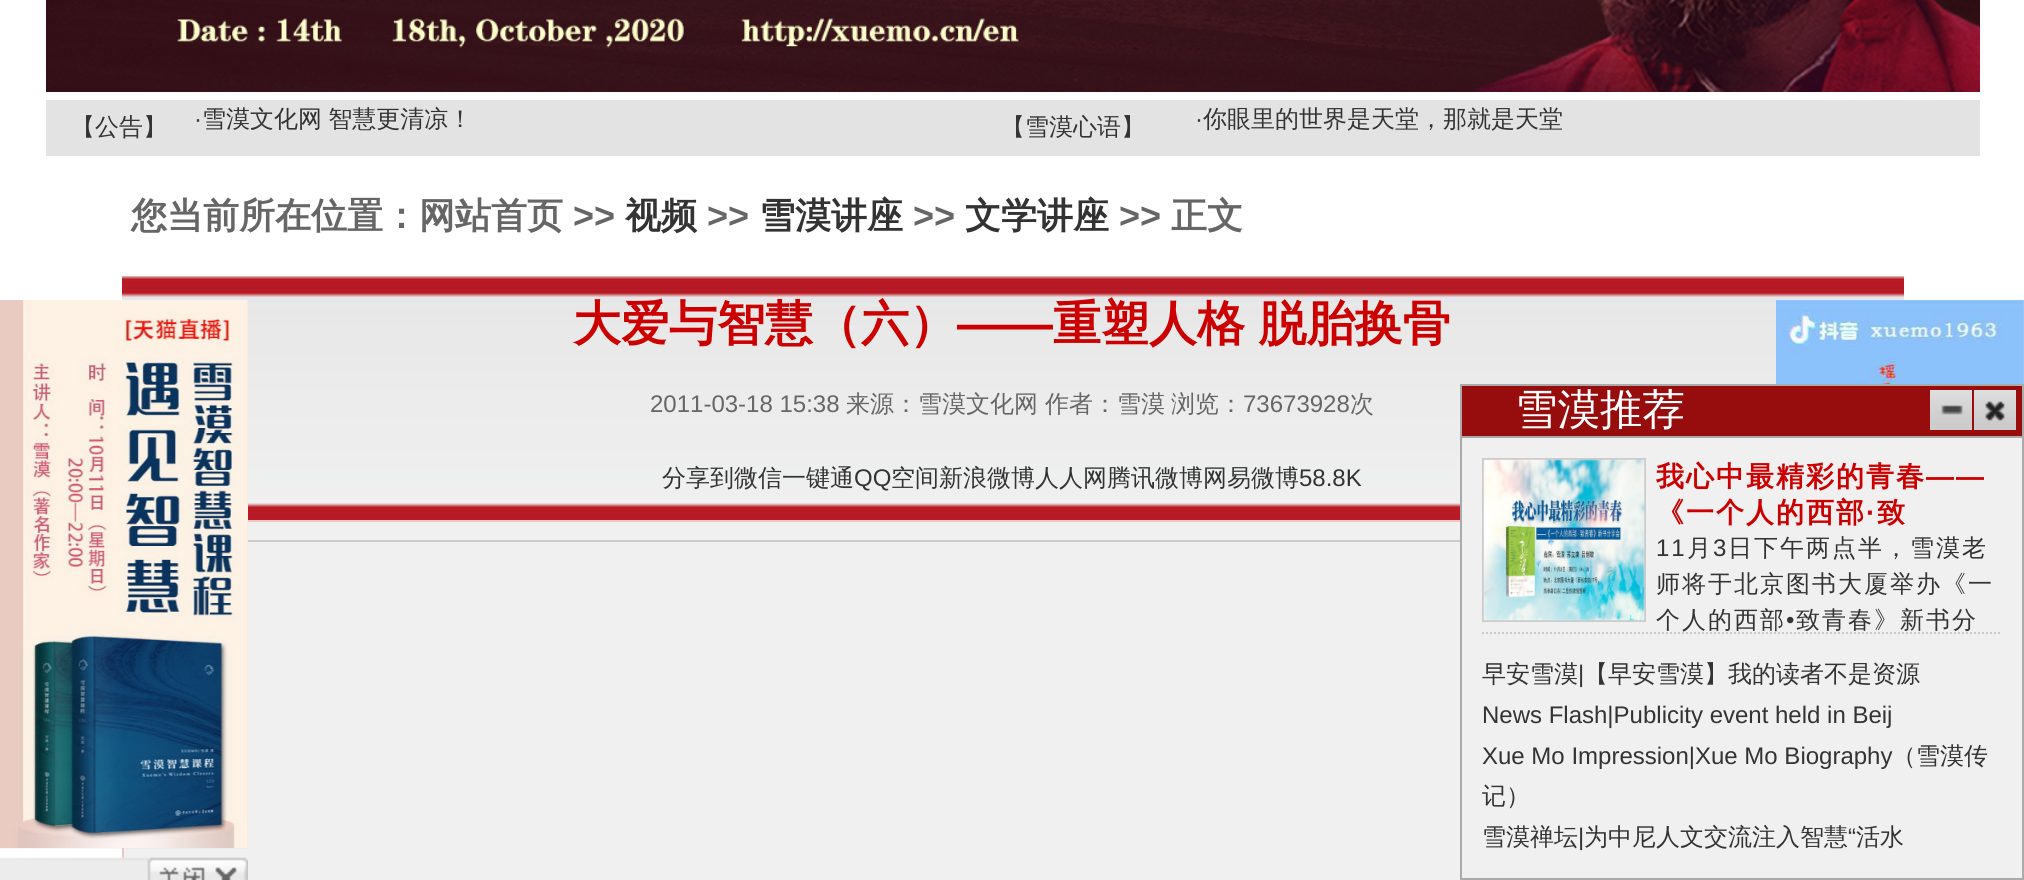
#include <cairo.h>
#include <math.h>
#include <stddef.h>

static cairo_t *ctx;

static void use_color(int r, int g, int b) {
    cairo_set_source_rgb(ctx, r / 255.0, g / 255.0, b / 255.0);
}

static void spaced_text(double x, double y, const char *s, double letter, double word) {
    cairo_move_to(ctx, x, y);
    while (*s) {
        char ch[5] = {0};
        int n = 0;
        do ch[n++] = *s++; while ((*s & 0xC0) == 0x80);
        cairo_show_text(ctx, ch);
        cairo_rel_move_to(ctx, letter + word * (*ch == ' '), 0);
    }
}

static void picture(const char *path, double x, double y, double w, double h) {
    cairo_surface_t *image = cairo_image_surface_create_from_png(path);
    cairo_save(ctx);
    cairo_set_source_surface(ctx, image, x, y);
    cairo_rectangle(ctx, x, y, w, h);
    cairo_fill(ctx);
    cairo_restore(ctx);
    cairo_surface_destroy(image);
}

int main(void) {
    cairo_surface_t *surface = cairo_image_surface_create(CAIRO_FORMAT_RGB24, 2024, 880);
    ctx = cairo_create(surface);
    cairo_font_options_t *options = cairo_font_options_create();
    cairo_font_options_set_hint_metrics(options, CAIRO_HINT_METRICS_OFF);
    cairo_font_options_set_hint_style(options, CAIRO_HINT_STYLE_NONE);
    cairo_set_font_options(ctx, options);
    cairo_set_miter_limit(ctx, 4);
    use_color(255, 255, 255);
    cairo_paint(ctx);
    picture("img1.png", 46, 0, 1934, 92);
    use_color(227, 227, 227);
    cairo_rectangle(ctx, 46, 100, 1934, 56);
    cairo_fill(ctx);
    cairo_select_font_face(ctx, "WenQuanYi Zen Hei Medium", CAIRO_FONT_SLANT_NORMAL, CAIRO_FONT_WEIGHT_NORMAL);
    cairo_set_font_size(ctx, 24);
    use_color(51, 51, 51);
    cairo_move_to(ctx, 71, 135);
    cairo_show_text(ctx, "【公告】");
    cairo_select_font_face(ctx, "Liberation Sans", CAIRO_FONT_SLANT_NORMAL, CAIRO_FONT_WEIGHT_NORMAL);
    cairo_move_to(ctx, 194, 127);
    cairo_show_text(ctx, "·");
    cairo_select_font_face(ctx, "WenQuanYi Zen Hei Medium", CAIRO_FONT_SLANT_NORMAL, CAIRO_FONT_WEIGHT_NORMAL);
    spaced_text(202, 127, "雪漠文化网 智慧更清凉！", 0, -1);
    cairo_move_to(ctx, 1001, 135);
    cairo_show_text(ctx, "【雪漠心语】");
    cairo_select_font_face(ctx, "Liberation Sans", CAIRO_FONT_SLANT_NORMAL, CAIRO_FONT_WEIGHT_NORMAL);
    cairo_move_to(ctx, 1195, 127);
    cairo_show_text(ctx, "·");
    cairo_select_font_face(ctx, "WenQuanYi Zen Hei Medium", CAIRO_FONT_SLANT_NORMAL, CAIRO_FONT_WEIGHT_NORMAL);
    cairo_move_to(ctx, 1203, 127);
    cairo_show_text(ctx, "你眼里的世界是天堂，那就是天堂");
    cairo_select_font_face(ctx, "WenQuanYi Zen Hei", CAIRO_FONT_SLANT_NORMAL, CAIRO_FONT_WEIGHT_BOLD);
    cairo_set_font_size(ctx, 36);
    use_color(102, 102, 102);
    cairo_move_to(ctx, 131, 228);
    cairo_show_text(ctx, "您当前所在位置：网站首页");
    cairo_select_font_face(ctx, "Liberation Sans", CAIRO_FONT_SLANT_NORMAL, CAIRO_FONT_WEIGHT_BOLD);
    cairo_move_to(ctx, 573, 228);
    cairo_show_text(ctx, ">>");
    cairo_select_font_face(ctx, "WenQuanYi Zen Hei", CAIRO_FONT_SLANT_NORMAL, CAIRO_FONT_WEIGHT_BOLD);
    use_color(51, 51, 51);
    cairo_move_to(ctx, 625, 228);
    cairo_show_text(ctx, "视频");
    cairo_select_font_face(ctx, "Liberation Sans", CAIRO_FONT_SLANT_NORMAL, CAIRO_FONT_WEIGHT_BOLD);
    use_color(102, 102, 102);
    cairo_move_to(ctx, 707, 228);
    cairo_show_text(ctx, ">>");
    cairo_select_font_face(ctx, "WenQuanYi Zen Hei", CAIRO_FONT_SLANT_NORMAL, CAIRO_FONT_WEIGHT_BOLD);
    use_color(51, 51, 51);
    cairo_move_to(ctx, 759, 228);
    cairo_show_text(ctx, "雪漠讲座");
    cairo_select_font_face(ctx, "Liberation Sans", CAIRO_FONT_SLANT_NORMAL, CAIRO_FONT_WEIGHT_BOLD);
    use_color(102, 102, 102);
    cairo_move_to(ctx, 913, 228);
    cairo_show_text(ctx, ">>");
    cairo_select_font_face(ctx, "WenQuanYi Zen Hei", CAIRO_FONT_SLANT_NORMAL, CAIRO_FONT_WEIGHT_BOLD);
    use_color(51, 51, 51);
    cairo_move_to(ctx, 965, 228);
    cairo_show_text(ctx, "文学讲座");
    cairo_select_font_face(ctx, "Liberation Sans", CAIRO_FONT_SLANT_NORMAL, CAIRO_FONT_WEIGHT_BOLD);
    use_color(102, 102, 102);
    cairo_move_to(ctx, 1119, 228);
    cairo_show_text(ctx, ">>");
    cairo_select_font_face(ctx, "WenQuanYi Zen Hei", CAIRO_FONT_SLANT_NORMAL, CAIRO_FONT_WEIGHT_BOLD);
    cairo_move_to(ctx, 1171, 228);
    cairo_show_text(ctx, "正文");
    picture("img4.png", 122, 276, 1782, 244);
    use_color(238, 198, 199);
    cairo_rectangle(ctx, 122, 520, 1338, 339);
    cairo_fill(ctx);
    use_color(240, 240, 240);
    cairo_rectangle(ctx, 124, 522, 1336, 358);
    cairo_fill(ctx);
    picture("img2.png", 0, 300, 248, 580);
    picture("img3.png", 0, 300, 248, 548);
    cairo_set_font_size(ctx, 48);
    use_color(204, 0, 0);
    cairo_move_to(ctx, 573, 340);
    cairo_show_text(ctx, "大爱与智慧（六）");
    cairo_select_font_face(ctx, "Liberation Sans", CAIRO_FONT_SLANT_NORMAL, CAIRO_FONT_WEIGHT_BOLD);
    cairo_move_to(ctx, 957, 340);
    cairo_show_text(ctx, "——");
    cairo_select_font_face(ctx, "WenQuanYi Zen Hei", CAIRO_FONT_SLANT_NORMAL, CAIRO_FONT_WEIGHT_BOLD);
    spaced_text(1053, 340, "重塑人格 脱胎换骨", 0, -1);
    cairo_select_font_face(ctx, "Liberation Sans", CAIRO_FONT_SLANT_NORMAL, CAIRO_FONT_WEIGHT_NORMAL);
    cairo_set_font_size(ctx, 24);
    use_color(102, 102, 102);
    cairo_move_to(ctx, 650, 412);
    cairo_show_text(ctx, "2011-03-18 15:38");
    cairo_select_font_face(ctx, "WenQuanYi Zen Hei Medium", CAIRO_FONT_SLANT_NORMAL, CAIRO_FONT_WEIGHT_NORMAL);
    cairo_move_to(ctx, 846, 412);
    cairo_show_text(ctx, "来源：雪漠文化网");
    cairo_move_to(ctx, 1045, 412);
    cairo_show_text(ctx, "作者：雪漠");
    cairo_move_to(ctx, 1171, 412);
    cairo_show_text(ctx, "浏览：");
    cairo_select_font_face(ctx, "Liberation Sans", CAIRO_FONT_SLANT_NORMAL, CAIRO_FONT_WEIGHT_NORMAL);
    cairo_move_to(ctx, 1243, 412);
    cairo_show_text(ctx, "73673928");
    cairo_select_font_face(ctx, "WenQuanYi Zen Hei Medium", CAIRO_FONT_SLANT_NORMAL, CAIRO_FONT_WEIGHT_NORMAL);
    cairo_move_to(ctx, 1350, 412);
    cairo_show_text(ctx, "次");
    use_color(51, 51, 51);
    cairo_move_to(ctx, 662, 486);
    cairo_show_text(ctx, "分享到微信一键通");
    cairo_select_font_face(ctx, "Liberation Sans", CAIRO_FONT_SLANT_NORMAL, CAIRO_FONT_WEIGHT_NORMAL);
    cairo_move_to(ctx, 854, 486);
    cairo_show_text(ctx, "QQ");
    cairo_select_font_face(ctx, "WenQuanYi Zen Hei Medium", CAIRO_FONT_SLANT_NORMAL, CAIRO_FONT_WEIGHT_NORMAL);
    cairo_move_to(ctx, 891, 486);
    cairo_show_text(ctx, "空间新浪微博人人网腾讯微博网易微博");
    cairo_select_font_face(ctx, "Liberation Sans", CAIRO_FONT_SLANT_NORMAL, CAIRO_FONT_WEIGHT_NORMAL);
    cairo_move_to(ctx, 1299, 486);
    cairo_show_text(ctx, "58.8K");
    use_color(204, 204, 204);
    cairo_rectangle(ctx, 248, 540, 1212, 2);
    cairo_fill(ctx);
    picture("img5.png", 2023, 300, 1, 84);
    picture("img6.png", 1776, 300, 248, 84);
    use_color(240, 240, 240);
    cairo_rectangle(ctx, 1462, 438, 560, 440);
    cairo_fill(ctx);
    cairo_rectangle(ctx, 1461, 385, 562, 494);
    use_color(170, 170, 170);
    cairo_stroke(ctx);
    use_color(151, 13, 13);
    cairo_rectangle(ctx, 1462, 386, 560, 50);
    cairo_fill(ctx);
    use_color(170, 170, 170);
    cairo_rectangle(ctx, 1462, 436, 560, 2);
    cairo_fill(ctx);
    cairo_select_font_face(ctx, "WenQuanYi Zen Hei Medium", CAIRO_FONT_SLANT_NORMAL, CAIRO_FONT_WEIGHT_NORMAL);
    cairo_set_font_size(ctx, 42.5);
    use_color(255, 255, 255);
    cairo_move_to(ctx, 1515, 424);
    cairo_show_text(ctx, "雪漠推荐");
    picture("img7.png", 1930, 390, 42, 40);
    picture("img8.png", 1974, 390, 42, 40);
    cairo_new_path(ctx);
    cairo_move_to(ctx, 1482, 633);
    cairo_line_to(ctx, 2002, 633);
    use_color(204, 204, 204);
    cairo_set_dash(ctx, (double[]){2, 2}, 2, 0);
    cairo_stroke(ctx);
    cairo_rectangle(ctx, 1483, 459, 162, 162);
    cairo_set_dash(ctx, NULL, 0, 0);
    cairo_stroke(ctx);
    picture("img9.png", 1483, 459, 162, 162);
    cairo_select_font_face(ctx, "WenQuanYi Zen Hei", CAIRO_FONT_SLANT_NORMAL, CAIRO_FONT_WEIGHT_BOLD);
    cairo_set_font_size(ctx, 28);
    use_color(204, 0, 0);
    spaced_text(1656, 486, "我心中最精彩的青春", 2, 0);
    cairo_select_font_face(ctx, "Liberation Sans", CAIRO_FONT_SLANT_NORMAL, CAIRO_FONT_WEIGHT_BOLD);
    spaced_text(1926, 486, "——", 2, 0);
    cairo_select_font_face(ctx, "WenQuanYi Zen Hei", CAIRO_FONT_SLANT_NORMAL, CAIRO_FONT_WEIGHT_BOLD);
    spaced_text(1656, 522, "《一个人的西部", 2, 0);
    cairo_select_font_face(ctx, "Liberation Sans", CAIRO_FONT_SLANT_NORMAL, CAIRO_FONT_WEIGHT_BOLD);
    spaced_text(1866, 522, "·", 2, 0);
    cairo_select_font_face(ctx, "WenQuanYi Zen Hei", CAIRO_FONT_SLANT_NORMAL, CAIRO_FONT_WEIGHT_BOLD);
    spaced_text(1877, 522, "致", 2, 0);
    cairo_select_font_face(ctx, "Liberation Sans", CAIRO_FONT_SLANT_NORMAL, CAIRO_FONT_WEIGHT_NORMAL);
    cairo_set_font_size(ctx, 24);
    use_color(51, 51, 51);
    spaced_text(1656, 556, "11", 2, 0);
    cairo_select_font_face(ctx, "WenQuanYi Zen Hei Medium", CAIRO_FONT_SLANT_NORMAL, CAIRO_FONT_WEIGHT_NORMAL);
    spaced_text(1687, 556, "月", 2, 0);
    cairo_select_font_face(ctx, "Liberation Sans", CAIRO_FONT_SLANT_NORMAL, CAIRO_FONT_WEIGHT_NORMAL);
    spaced_text(1713, 556, "3", 2, 0);
    cairo_select_font_face(ctx, "WenQuanYi Zen Hei Medium", CAIRO_FONT_SLANT_NORMAL, CAIRO_FONT_WEIGHT_NORMAL);
    spaced_text(1728, 556, "日下午两点半，雪漠老", 2, 0);
    spaced_text(1656, 592, "师将于北京图书大厦举办《一", 2, 0);
    spaced_text(1656, 628, "个人的西部", 2, 0);
    cairo_select_font_face(ctx, "Liberation Sans", CAIRO_FONT_SLANT_NORMAL, CAIRO_FONT_WEIGHT_NORMAL);
    spaced_text(1786, 628, "•", 2, 0);
    cairo_select_font_face(ctx, "WenQuanYi Zen Hei Medium", CAIRO_FONT_SLANT_NORMAL, CAIRO_FONT_WEIGHT_NORMAL);
    spaced_text(1796, 628, "致青春》新书分", 2, 0);
    cairo_move_to(ctx, 1482, 682);
    cairo_show_text(ctx, "早安雪漠");
    cairo_select_font_face(ctx, "Liberation Sans", CAIRO_FONT_SLANT_NORMAL, CAIRO_FONT_WEIGHT_NORMAL);
    cairo_move_to(ctx, 1578, 682);
    cairo_show_text(ctx, "|");
    cairo_select_font_face(ctx, "WenQuanYi Zen Hei Medium", CAIRO_FONT_SLANT_NORMAL, CAIRO_FONT_WEIGHT_NORMAL);
    cairo_move_to(ctx, 1584, 682);
    cairo_show_text(ctx, "【早安雪漠】我的读者不是资源");
    cairo_select_font_face(ctx, "Liberation Sans", CAIRO_FONT_SLANT_NORMAL, CAIRO_FONT_WEIGHT_NORMAL);
    cairo_move_to(ctx, 1482, 723);
    cairo_show_text(ctx, "News Flash|Publicity event held in Beij");
    cairo_move_to(ctx, 1482, 764);
    cairo_show_text(ctx, "Xue Mo Impression|Xue Mo Biography");
    cairo_select_font_face(ctx, "WenQuanYi Zen Hei Medium", CAIRO_FONT_SLANT_NORMAL, CAIRO_FONT_WEIGHT_NORMAL);
    cairo_move_to(ctx, 1892, 764);
    cairo_show_text(ctx, "（雪漠传");
    cairo_move_to(ctx, 1482, 804);
    cairo_show_text(ctx, "记）");
    cairo_move_to(ctx, 1482, 845);
    cairo_show_text(ctx, "雪漠禅坛");
    cairo_select_font_face(ctx, "Liberation Sans", CAIRO_FONT_SLANT_NORMAL, CAIRO_FONT_WEIGHT_NORMAL);
    cairo_move_to(ctx, 1578, 845);
    cairo_show_text(ctx, "|");
    cairo_select_font_face(ctx, "WenQuanYi Zen Hei Medium", CAIRO_FONT_SLANT_NORMAL, CAIRO_FONT_WEIGHT_NORMAL);
    cairo_move_to(ctx, 1584, 845);
    cairo_show_text(ctx, "为中尼人文交流注入智慧");
    cairo_select_font_face(ctx, "Liberation Sans", CAIRO_FONT_SLANT_NORMAL, CAIRO_FONT_WEIGHT_NORMAL);
    cairo_move_to(ctx, 1848, 845);
    cairo_show_text(ctx, "“");
    cairo_select_font_face(ctx, "WenQuanYi Zen Hei Medium", CAIRO_FONT_SLANT_NORMAL, CAIRO_FONT_WEIGHT_NORMAL);
    cairo_move_to(ctx, 1856, 845);
    cairo_show_text(ctx, "活水");
    cairo_surface_write_to_png(surface, "result.png");
    cairo_font_options_destroy(options);
    cairo_destroy(ctx);
    cairo_surface_destroy(surface);
    return 0;
}
